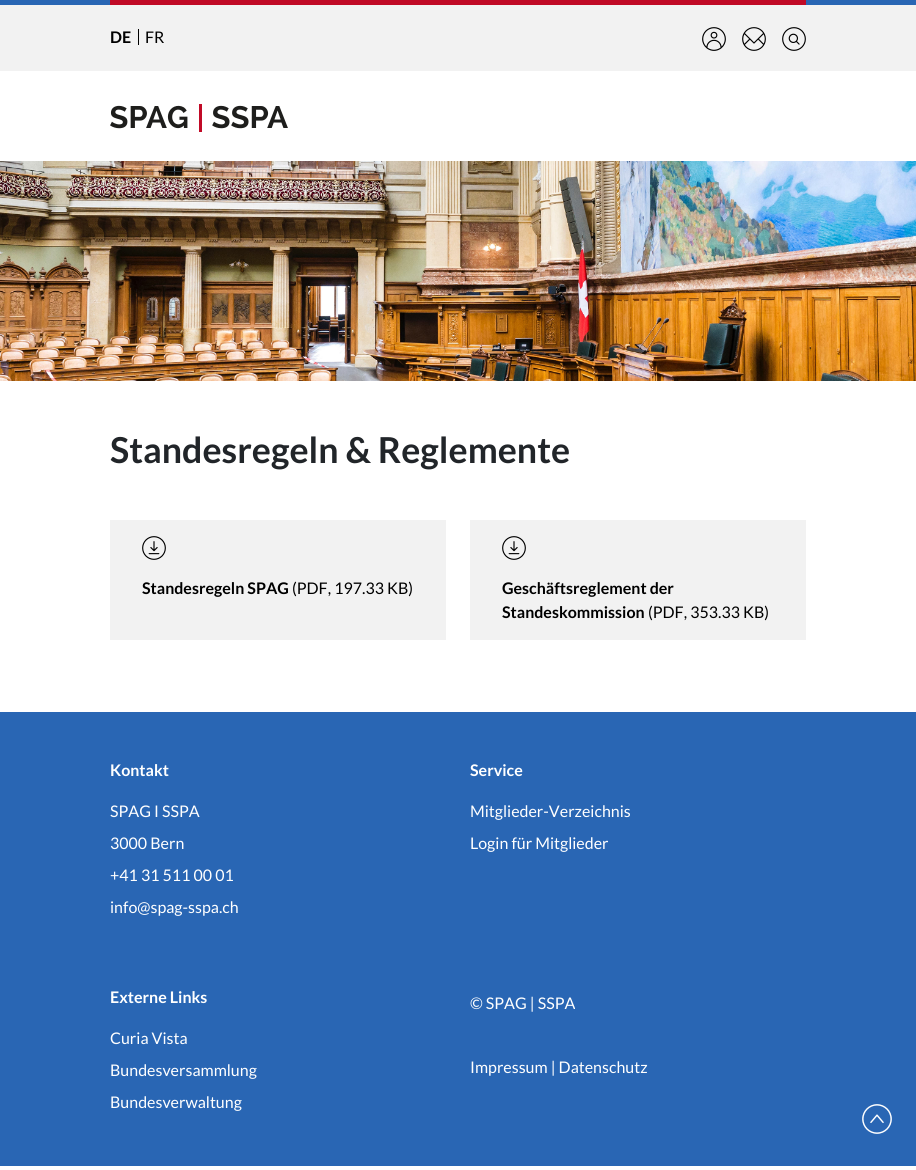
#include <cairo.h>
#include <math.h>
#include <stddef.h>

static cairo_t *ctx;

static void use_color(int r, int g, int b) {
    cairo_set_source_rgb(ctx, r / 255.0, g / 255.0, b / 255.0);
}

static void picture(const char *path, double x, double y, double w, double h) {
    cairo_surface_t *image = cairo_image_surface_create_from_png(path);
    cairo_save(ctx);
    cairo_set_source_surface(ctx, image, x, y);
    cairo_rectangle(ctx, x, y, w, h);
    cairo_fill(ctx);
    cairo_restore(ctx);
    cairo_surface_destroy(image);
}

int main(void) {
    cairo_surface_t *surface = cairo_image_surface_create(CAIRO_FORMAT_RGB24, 916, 1170);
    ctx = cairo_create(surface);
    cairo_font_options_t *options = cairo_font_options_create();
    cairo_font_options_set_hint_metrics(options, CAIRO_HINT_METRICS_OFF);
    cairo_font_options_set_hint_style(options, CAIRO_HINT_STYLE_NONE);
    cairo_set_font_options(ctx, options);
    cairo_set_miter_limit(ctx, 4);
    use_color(255, 255, 255);
    cairo_paint(ctx);
    use_color(242, 242, 242);
    cairo_rectangle(ctx, 0, 5, 916, 66);
    cairo_fill(ctx);
    use_color(41, 102, 180);
    cairo_rectangle(ctx, 0, 0, 916, 5);
    cairo_fill(ctx);
    use_color(192, 10, 38);
    cairo_rectangle(ctx, 110, 0, 696, 5);
    cairo_fill(ctx);
    use_color(0, 0, 0);
    cairo_rectangle(ctx, 138, 29, 1, 16);
    cairo_fill(ctx);
    cairo_select_font_face(ctx, "Lato", CAIRO_FONT_SLANT_NORMAL, CAIRO_FONT_WEIGHT_BOLD);
    cairo_set_font_size(ctx, 16);
    cairo_move_to(ctx, 110, 43);
    cairo_show_text(ctx, "DE");
    cairo_select_font_face(ctx, "Lato", CAIRO_FONT_SLANT_NORMAL, CAIRO_FONT_WEIGHT_NORMAL);
    cairo_move_to(ctx, 145, 43);
    cairo_show_text(ctx, "FR");
    picture("img1.png", 702, 27, 24, 24);
    picture("img2.png", 742, 27, 24, 24);
    picture("img3.png", 782, 27, 24, 24);
    picture("img4.png", 110, 104, 178, 28);
    picture("img5.png", 0, 161, 916, 220);
    cairo_select_font_face(ctx, "Lato", CAIRO_FONT_SLANT_NORMAL, CAIRO_FONT_WEIGHT_BOLD);
    cairo_set_font_size(ctx, 35.75);
    use_color(33, 37, 41);
    cairo_move_to(ctx, 110, 463);
    cairo_show_text(ctx, "Standesregeln & Reglemente");
    use_color(242, 242, 242);
    cairo_rectangle(ctx, 110, 520, 336, 120);
    cairo_fill(ctx);
    picture("img6.png", 142, 536, 24, 24);
    cairo_set_font_size(ctx, 16);
    use_color(0, 0, 0);
    cairo_move_to(ctx, 142, 594);
    cairo_show_text(ctx, "Standesregeln SPAG");
    cairo_select_font_face(ctx, "Lato", CAIRO_FONT_SLANT_NORMAL, CAIRO_FONT_WEIGHT_NORMAL);
    cairo_move_to(ctx, 292, 594);
    cairo_show_text(ctx, "(PDF, 197.33 KB)");
    use_color(242, 242, 242);
    cairo_rectangle(ctx, 470, 520, 336, 120);
    cairo_fill(ctx);
    picture("img6.png", 502, 536, 24, 24);
    cairo_select_font_face(ctx, "Lato", CAIRO_FONT_SLANT_NORMAL, CAIRO_FONT_WEIGHT_BOLD);
    use_color(0, 0, 0);
    cairo_move_to(ctx, 502, 594);
    cairo_show_text(ctx, "Geschäftsreglement der");
    cairo_move_to(ctx, 502, 618);
    cairo_show_text(ctx, "Standeskommission");
    cairo_select_font_face(ctx, "Lato", CAIRO_FONT_SLANT_NORMAL, CAIRO_FONT_WEIGHT_NORMAL);
    cairo_move_to(ctx, 648, 618);
    cairo_show_text(ctx, "(PDF, 353.33 KB)");
    use_color(41, 102, 180);
    cairo_rectangle(ctx, 0, 712, 916, 454);
    cairo_fill(ctx);
    cairo_select_font_face(ctx, "Lato", CAIRO_FONT_SLANT_NORMAL, CAIRO_FONT_WEIGHT_BOLD);
    use_color(255, 255, 255);
    cairo_move_to(ctx, 110, 776);
    cairo_show_text(ctx, "Kontakt");
    cairo_select_font_face(ctx, "Lato", CAIRO_FONT_SLANT_NORMAL, CAIRO_FONT_WEIGHT_NORMAL);
    cairo_move_to(ctx, 110, 817);
    cairo_show_text(ctx, "SPAG I SSPA");
    cairo_move_to(ctx, 110, 849);
    cairo_show_text(ctx, "3000 Bern");
    cairo_move_to(ctx, 110, 881);
    cairo_show_text(ctx, "+41 31 511 00 01");
    cairo_move_to(ctx, 110, 913);
    cairo_show_text(ctx, "info@spag-sspa.ch");
    cairo_select_font_face(ctx, "Lato", CAIRO_FONT_SLANT_NORMAL, CAIRO_FONT_WEIGHT_BOLD);
    cairo_move_to(ctx, 470, 776);
    cairo_show_text(ctx, "Service");
    cairo_select_font_face(ctx, "Lato", CAIRO_FONT_SLANT_NORMAL, CAIRO_FONT_WEIGHT_NORMAL);
    cairo_move_to(ctx, 470, 817);
    cairo_show_text(ctx, "Mitglieder-Verzeichnis");
    cairo_move_to(ctx, 470, 849);
    cairo_show_text(ctx, "Login für Mitglieder");
    cairo_select_font_face(ctx, "Lato", CAIRO_FONT_SLANT_NORMAL, CAIRO_FONT_WEIGHT_BOLD);
    cairo_move_to(ctx, 110, 1003);
    cairo_show_text(ctx, "Externe Links");
    cairo_select_font_face(ctx, "Lato", CAIRO_FONT_SLANT_NORMAL, CAIRO_FONT_WEIGHT_NORMAL);
    cairo_move_to(ctx, 110, 1044);
    cairo_show_text(ctx, "Curia Vista");
    cairo_move_to(ctx, 110, 1076);
    cairo_show_text(ctx, "Bundesversammlung");
    cairo_move_to(ctx, 110, 1108);
    cairo_show_text(ctx, "Bundesverwaltung");
    cairo_move_to(ctx, 470, 1009);
    cairo_show_text(ctx, "© SPAG | SSPA");
    cairo_move_to(ctx, 470, 1073);
    cairo_show_text(ctx, "Impressum | Datenschutz");
    picture("img7.png", 862, 1104, 30, 30);
    cairo_surface_write_to_png(surface, "result.png");
    cairo_font_options_destroy(options);
    cairo_destroy(ctx);
    cairo_surface_destroy(surface);
    return 0;
}
